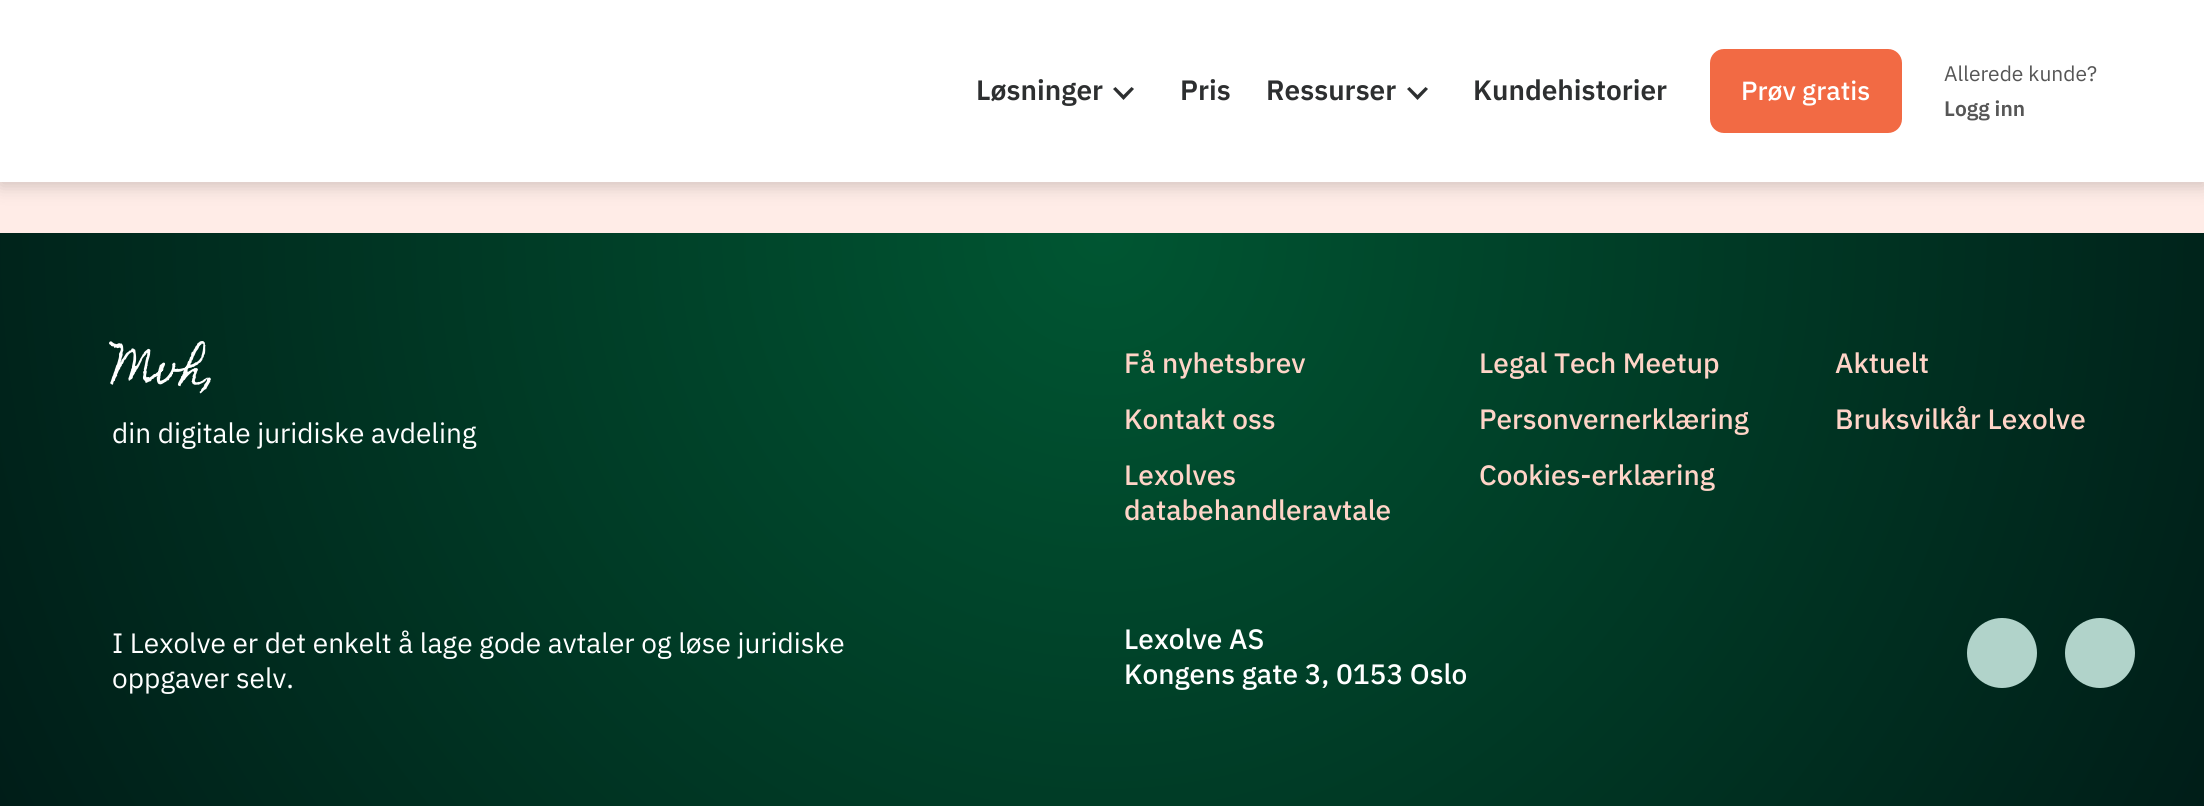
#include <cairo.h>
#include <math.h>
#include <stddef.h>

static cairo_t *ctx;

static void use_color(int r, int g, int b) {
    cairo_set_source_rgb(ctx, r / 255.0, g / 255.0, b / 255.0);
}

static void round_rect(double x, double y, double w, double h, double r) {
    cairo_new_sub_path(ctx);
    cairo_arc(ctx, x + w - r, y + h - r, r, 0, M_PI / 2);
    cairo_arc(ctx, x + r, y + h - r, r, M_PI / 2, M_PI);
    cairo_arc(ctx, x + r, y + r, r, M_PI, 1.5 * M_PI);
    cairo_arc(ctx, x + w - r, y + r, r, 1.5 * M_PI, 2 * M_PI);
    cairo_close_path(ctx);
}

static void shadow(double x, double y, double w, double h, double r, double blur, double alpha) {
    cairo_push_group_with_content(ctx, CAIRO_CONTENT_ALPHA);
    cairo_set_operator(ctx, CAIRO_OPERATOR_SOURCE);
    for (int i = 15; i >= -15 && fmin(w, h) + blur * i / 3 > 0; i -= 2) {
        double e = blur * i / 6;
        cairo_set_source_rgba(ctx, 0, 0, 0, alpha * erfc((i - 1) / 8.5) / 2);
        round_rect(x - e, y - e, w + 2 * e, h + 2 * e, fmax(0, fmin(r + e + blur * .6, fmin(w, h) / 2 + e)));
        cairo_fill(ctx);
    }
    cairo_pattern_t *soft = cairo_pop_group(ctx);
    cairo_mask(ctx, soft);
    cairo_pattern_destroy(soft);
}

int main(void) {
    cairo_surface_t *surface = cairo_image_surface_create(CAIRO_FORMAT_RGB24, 2204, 806);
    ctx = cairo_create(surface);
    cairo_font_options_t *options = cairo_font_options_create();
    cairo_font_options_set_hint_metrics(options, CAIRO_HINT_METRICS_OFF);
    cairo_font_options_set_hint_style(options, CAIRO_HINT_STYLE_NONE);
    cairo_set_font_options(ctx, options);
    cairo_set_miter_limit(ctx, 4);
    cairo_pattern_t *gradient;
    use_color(255, 236, 231);
    cairo_paint(ctx);
    use_color(0, 0, 0);
    shadow(0, 4, 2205, 182, 0, 9, 0.18);
    use_color(255, 255, 255);
    cairo_rectangle(ctx, 0, 0, 2204, 182);
    cairo_fill(ctx);
    cairo_select_font_face(ctx, "IBM Plex Sans SemiBold", CAIRO_FONT_SLANT_NORMAL, CAIRO_FONT_WEIGHT_NORMAL);
    cairo_set_font_size(ctx, 28);
    use_color(45, 47, 48);
    cairo_move_to(ctx, 976, 100);
    cairo_show_text(ctx, "Løsninger");
    cairo_new_path(ctx);
    cairo_move_to(ctx, 1131.5, 87);
    cairo_line_to(ctx, 1123.5, 95);
    cairo_line_to(ctx, 1115.5, 87);
    cairo_line_to(ctx, 1113, 89);
    cairo_line_to(ctx, 1123.5, 100);
    cairo_line_to(ctx, 1134, 89);
    cairo_close_path(ctx);
    cairo_fill(ctx);
    cairo_move_to(ctx, 1180, 100);
    cairo_show_text(ctx, "Pris");
    cairo_move_to(ctx, 1266, 100);
    cairo_show_text(ctx, "Ressurser");
    cairo_new_path(ctx);
    cairo_move_to(ctx, 1425.5, 87);
    cairo_line_to(ctx, 1417.5, 95);
    cairo_line_to(ctx, 1409.5, 87);
    cairo_line_to(ctx, 1407, 89);
    cairo_line_to(ctx, 1417.5, 100);
    cairo_line_to(ctx, 1428, 89);
    cairo_close_path(ctx);
    cairo_fill(ctx);
    cairo_move_to(ctx, 1473, 100);
    cairo_show_text(ctx, "Kundehistorier");
    use_color(242, 106, 68);
    round_rect(1712, 51, 188, 80, 12);
    cairo_fill_preserve(ctx);
    cairo_set_line_width(ctx, 4);
    cairo_stroke(ctx);
    cairo_select_font_face(ctx, "IBM Plex Sans Medium", CAIRO_FONT_SLANT_NORMAL, CAIRO_FONT_WEIGHT_NORMAL);
    cairo_set_font_size(ctx, 26.25);
    use_color(255, 255, 255);
    cairo_move_to(ctx, 1741, 100);
    cairo_show_text(ctx, "Prøv gratis");
    cairo_select_font_face(ctx, "IBM Plex Sans", CAIRO_FONT_SLANT_NORMAL, CAIRO_FONT_WEIGHT_NORMAL);
    cairo_set_font_size(ctx, 21);
    use_color(86, 86, 86);
    cairo_move_to(ctx, 1944, 81);
    cairo_show_text(ctx, "Allerede kunde?");
    cairo_select_font_face(ctx, "IBM Plex Sans SemiBold", CAIRO_FONT_SLANT_NORMAL, CAIRO_FONT_WEIGHT_NORMAL);
    cairo_move_to(ctx, 1944, 116);
    cairo_show_text(ctx, "Logg inn");
    gradient = cairo_pattern_create_radial(1103, 233, 0, 1103, 233, 1243);
    cairo_pattern_add_color_stop_rgba(gradient, 0, 0, 0.337, 0.196, 1);
    cairo_pattern_add_color_stop_rgba(gradient, 1, 0, 0.114, 0.094, 1);
    cairo_set_source(ctx, gradient);
    cairo_pattern_destroy(gradient);
    cairo_rectangle(ctx, 0, 233, 2204, 573);
    cairo_fill(ctx);
    cairo_select_font_face(ctx, "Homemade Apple", CAIRO_FONT_SLANT_NORMAL, CAIRO_FONT_WEIGHT_NORMAL);
    cairo_set_font_size(ctx, 42);
    use_color(255, 255, 255);
    cairo_move_to(ctx, 112, 382);
    cairo_show_text(ctx, "Mvh,");
    cairo_select_font_face(ctx, "IBM Plex Sans", CAIRO_FONT_SLANT_NORMAL, CAIRO_FONT_WEIGHT_NORMAL);
    cairo_set_font_size(ctx, 28);
    cairo_move_to(ctx, 112, 443);
    cairo_show_text(ctx, "din digitale juridiske avdeling");
    cairo_move_to(ctx, 112, 653);
    cairo_show_text(ctx, "I Lexolve er det enkelt å lage gode avtaler og løse juridiske");
    cairo_move_to(ctx, 112, 688);
    cairo_show_text(ctx, "oppgaver selv.");
    cairo_select_font_face(ctx, "IBM Plex Sans Medium", CAIRO_FONT_SLANT_NORMAL, CAIRO_FONT_WEIGHT_NORMAL);
    use_color(255, 212, 199);
    cairo_move_to(ctx, 1124, 373);
    cairo_show_text(ctx, "Få nyhetsbrev");
    cairo_move_to(ctx, 1479, 373);
    cairo_show_text(ctx, "Legal Tech Meetup");
    cairo_move_to(ctx, 1835, 373);
    cairo_show_text(ctx, "Aktuelt");
    cairo_move_to(ctx, 1124, 429);
    cairo_show_text(ctx, "Kontakt oss");
    cairo_move_to(ctx, 1479, 429);
    cairo_show_text(ctx, "Personvernerklæring");
    cairo_move_to(ctx, 1835, 429);
    cairo_show_text(ctx, "Bruksvilkår Lexolve");
    cairo_move_to(ctx, 1124, 485);
    cairo_show_text(ctx, "Lexolves");
    cairo_move_to(ctx, 1124, 520);
    cairo_show_text(ctx, "databehandleravtale");
    cairo_move_to(ctx, 1479, 485);
    cairo_show_text(ctx, "Cookies-erklæring");
    use_color(255, 255, 255);
    cairo_move_to(ctx, 1124, 649);
    cairo_show_text(ctx, "Lexolve AS");
    cairo_move_to(ctx, 1124, 684);
    cairo_show_text(ctx, "Kongens gate 3, 0153 Oslo");
    use_color(177, 211, 202);
    cairo_new_path(ctx);
    cairo_arc(ctx, 2002, 653, 35, 0, 2 * M_PI);
    cairo_fill(ctx);
    cairo_arc(ctx, 2100, 653, 35, 0, 2 * M_PI);
    cairo_fill(ctx);
    cairo_surface_write_to_png(surface, "result.png");
    cairo_font_options_destroy(options);
    cairo_destroy(ctx);
    cairo_surface_destroy(surface);
    return 0;
}
